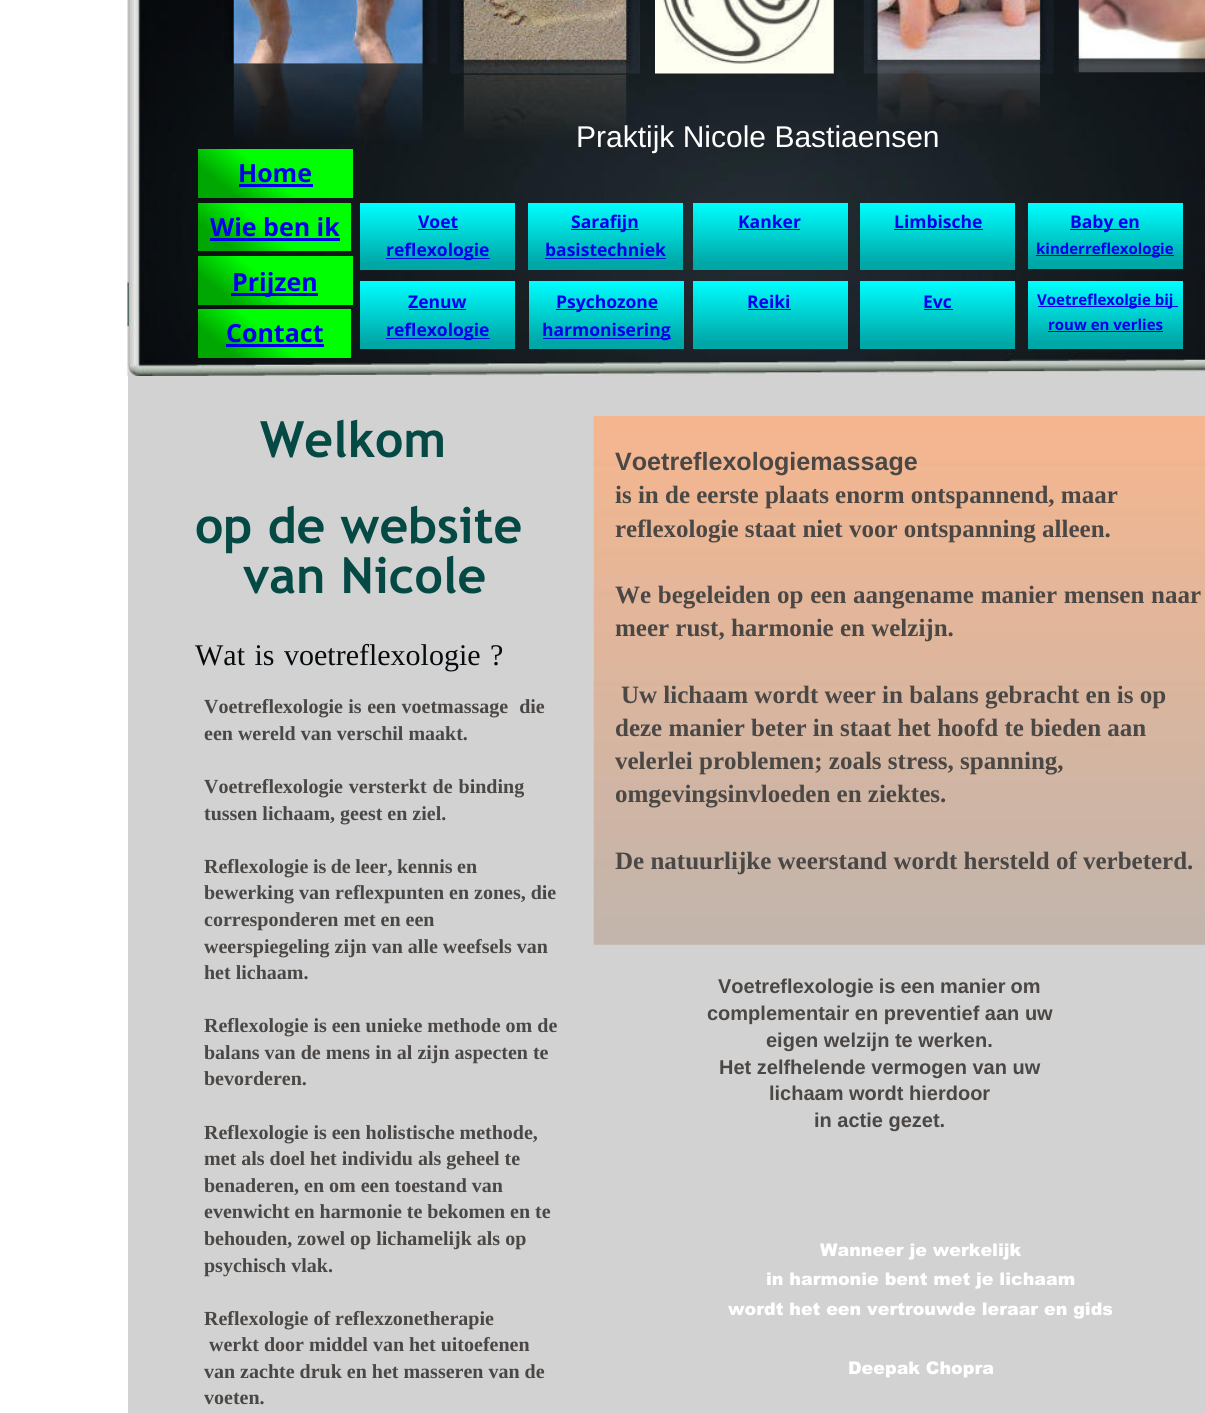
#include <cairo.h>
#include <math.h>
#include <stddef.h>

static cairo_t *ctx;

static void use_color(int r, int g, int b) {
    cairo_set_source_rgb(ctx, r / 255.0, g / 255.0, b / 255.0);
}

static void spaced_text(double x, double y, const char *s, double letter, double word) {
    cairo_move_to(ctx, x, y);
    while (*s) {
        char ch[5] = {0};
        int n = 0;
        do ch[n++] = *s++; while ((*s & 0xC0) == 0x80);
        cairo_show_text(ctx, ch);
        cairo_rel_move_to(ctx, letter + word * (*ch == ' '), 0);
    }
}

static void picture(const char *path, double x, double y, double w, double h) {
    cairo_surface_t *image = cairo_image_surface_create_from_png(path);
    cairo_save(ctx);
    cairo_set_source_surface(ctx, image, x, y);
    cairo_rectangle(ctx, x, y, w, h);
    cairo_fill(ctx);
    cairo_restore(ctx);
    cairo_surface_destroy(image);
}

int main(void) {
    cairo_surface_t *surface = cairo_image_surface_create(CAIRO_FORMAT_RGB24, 1205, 1413);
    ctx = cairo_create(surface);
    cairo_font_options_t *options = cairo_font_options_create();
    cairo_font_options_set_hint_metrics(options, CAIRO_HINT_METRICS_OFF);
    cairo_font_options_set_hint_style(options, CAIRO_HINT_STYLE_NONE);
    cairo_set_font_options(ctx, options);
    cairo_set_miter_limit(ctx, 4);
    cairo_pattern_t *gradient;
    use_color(255, 255, 255);
    cairo_paint(ctx);
    picture("img1.png", 126, 0, 1079, 376);
    picture("img7.png", 233, 63, 190, 189);
    picture("img2.png", 224, 0, 214, 64);
    picture("img8.png", 463, 73, 164, 149);
    picture("img3.png", 450, 0, 190, 74);
    picture("img4.png", 655, 0, 179, 74);
    picture("img9.png", 877, 73, 163, 144);
    picture("img5.png", 863, 0, 191, 74);
    picture("img6.png", 1074, 0, 131, 73);
    cairo_select_font_face(ctx, "Liberation Sans", CAIRO_FONT_SLANT_NORMAL, CAIRO_FONT_WEIGHT_NORMAL);
    cairo_set_font_size(ctx, 30);
    use_color(255, 255, 255);
    cairo_move_to(ctx, 576, 147);
    cairo_show_text(ctx, "Praktijk Nicole Bastiaensen");
    gradient = cairo_pattern_create_linear(318, 121, 232, 226);
    cairo_pattern_add_color_stop_rgba(gradient, 0.53, 0, 1, 0.012, 1);
    cairo_pattern_add_color_stop_rgba(gradient, 0.81, 0, 0.655, 0.008, 1);
    cairo_set_source(ctx, gradient);
    cairo_pattern_destroy(gradient);
    cairo_rectangle(ctx, 198, 149, 155, 49);
    cairo_fill(ctx);
    cairo_select_font_face(ctx, "Open Sans", CAIRO_FONT_SLANT_NORMAL, CAIRO_FONT_WEIGHT_BOLD);
    cairo_set_font_size(ctx, 25);
    use_color(0, 0, 238);
    cairo_move_to(ctx, 238, 182);
    cairo_show_text(ctx, "Home");
    cairo_rectangle(ctx, 239, 184, 74, 3);
    cairo_fill(ctx);
    gradient = cairo_pattern_create_linear(317, 175, 232, 279);
    cairo_pattern_add_color_stop_rgba(gradient, 0.54, 0, 1, 0.012, 1);
    cairo_pattern_add_color_stop_rgba(gradient, 0.82, 0, 0.655, 0.008, 1);
    cairo_set_source(ctx, gradient);
    cairo_pattern_destroy(gradient);
    cairo_rectangle(ctx, 198, 203, 153, 48);
    cairo_fill(ctx);
    use_color(0, 0, 238);
    cairo_move_to(ctx, 210, 236);
    cairo_show_text(ctx, "Wie ben ik");
    cairo_rectangle(ctx, 210, 238, 130, 3);
    cairo_fill(ctx);
    gradient = cairo_pattern_create_linear(438, 203, 438, 270);
    cairo_pattern_add_color_stop_rgba(gradient, 0, 0, 1, 1, 1);
    cairo_pattern_add_color_stop_rgba(gradient, 0.9, 0, 0.655, 0.655, 1);
    cairo_set_source(ctx, gradient);
    cairo_pattern_destroy(gradient);
    cairo_rectangle(ctx, 360, 203, 155, 67);
    cairo_fill(ctx);
    cairo_set_font_size(ctx, 17.5);
    use_color(0, 0, 238);
    cairo_move_to(ctx, 418, 228);
    cairo_show_text(ctx, "Voet");
    cairo_rectangle(ctx, 418, 229, 40, 1);
    cairo_fill(ctx);
    cairo_rectangle(ctx, 386, 258, 104, 1);
    cairo_fill(ctx);
    cairo_move_to(ctx, 386, 256);
    cairo_show_text(ctx, "reflexologie");
    gradient = cairo_pattern_create_linear(605, 203, 605, 270);
    cairo_pattern_add_color_stop_rgba(gradient, 0, 0, 1, 1, 1);
    cairo_pattern_add_color_stop_rgba(gradient, 0.9, 0, 0.655, 0.655, 1);
    cairo_set_source(ctx, gradient);
    cairo_pattern_destroy(gradient);
    cairo_rectangle(ctx, 528, 203, 155, 67);
    cairo_fill(ctx);
    use_color(0, 0, 238);
    cairo_rectangle(ctx, 571, 229, 68, 1);
    cairo_fill(ctx);
    cairo_move_to(ctx, 571, 228);
    cairo_show_text(ctx, "Sarafijn");
    cairo_move_to(ctx, 545, 256);
    cairo_show_text(ctx, "basistechniek");
    cairo_rectangle(ctx, 545, 258, 121, 1);
    cairo_fill(ctx);
    gradient = cairo_pattern_create_linear(770, 203, 770, 270);
    cairo_pattern_add_color_stop_rgba(gradient, 0, 0, 1, 1, 1);
    cairo_pattern_add_color_stop_rgba(gradient, 0.9, 0, 0.655, 0.655, 1);
    cairo_set_source(ctx, gradient);
    cairo_pattern_destroy(gradient);
    cairo_rectangle(ctx, 693, 203, 155, 67);
    cairo_fill(ctx);
    use_color(0, 0, 238);
    cairo_move_to(ctx, 738, 228);
    cairo_show_text(ctx, "Kanker");
    cairo_rectangle(ctx, 738, 229, 62, 1);
    cairo_fill(ctx);
    gradient = cairo_pattern_create_linear(938, 203, 938, 270);
    cairo_pattern_add_color_stop_rgba(gradient, 0, 0, 1, 1, 1);
    cairo_pattern_add_color_stop_rgba(gradient, 0.9, 0, 0.655, 0.655, 1);
    cairo_set_source(ctx, gradient);
    cairo_pattern_destroy(gradient);
    cairo_rectangle(ctx, 860, 203, 155, 67);
    cairo_fill(ctx);
    use_color(0, 0, 238);
    cairo_move_to(ctx, 894, 228);
    cairo_show_text(ctx, "Limbische");
    cairo_rectangle(ctx, 894, 229, 89, 1);
    cairo_fill(ctx);
    gradient = cairo_pattern_create_linear(1105, 203, 1105, 269);
    cairo_pattern_add_color_stop_rgba(gradient, 0, 0, 1, 1, 1);
    cairo_pattern_add_color_stop_rgba(gradient, 0.9, 0, 0.655, 0.655, 1);
    cairo_set_source(ctx, gradient);
    cairo_pattern_destroy(gradient);
    cairo_rectangle(ctx, 1028, 203, 155, 66);
    cairo_fill(ctx);
    use_color(0, 0, 238);
    cairo_rectangle(ctx, 1070, 229, 70, 1);
    cairo_fill(ctx);
    cairo_move_to(ctx, 1070, 228);
    cairo_show_text(ctx, "Baby en");
    cairo_rectangle(ctx, 1036, 255, 138, 1);
    cairo_fill(ctx);
    cairo_set_font_size(ctx, 15);
    cairo_move_to(ctx, 1036, 254);
    cairo_show_text(ctx, "kinderreflexologie");
    gradient = cairo_pattern_create_linear(318, 228, 232, 333);
    cairo_pattern_add_color_stop_rgba(gradient, 0.53, 0, 1, 0.012, 1);
    cairo_pattern_add_color_stop_rgba(gradient, 0.82, 0, 0.655, 0.008, 1);
    cairo_set_source(ctx, gradient);
    cairo_pattern_destroy(gradient);
    cairo_rectangle(ctx, 198, 256, 155, 49);
    cairo_fill(ctx);
    use_color(0, 0, 238);
    cairo_rectangle(ctx, 231, 293, 87, 3);
    cairo_fill(ctx);
    cairo_set_font_size(ctx, 25);
    cairo_move_to(ctx, 232, 291);
    cairo_show_text(ctx, "Prijzen");
    gradient = cairo_pattern_create_linear(438, 281, 438, 349);
    cairo_pattern_add_color_stop_rgba(gradient, 0, 0, 1, 1, 1);
    cairo_pattern_add_color_stop_rgba(gradient, 0.9, 0, 0.655, 0.655, 1);
    cairo_set_source(ctx, gradient);
    cairo_pattern_destroy(gradient);
    cairo_rectangle(ctx, 360, 281, 155, 68);
    cairo_fill(ctx);
    cairo_set_font_size(ctx, 17.5);
    use_color(0, 0, 238);
    cairo_move_to(ctx, 408, 308);
    cairo_show_text(ctx, "Zenuw");
    cairo_rectangle(ctx, 409, 309, 57, 1);
    cairo_fill(ctx);
    cairo_rectangle(ctx, 386, 338, 104, 1);
    cairo_fill(ctx);
    cairo_move_to(ctx, 386, 336);
    cairo_show_text(ctx, "reflexologie");
    gradient = cairo_pattern_create_linear(606, 281, 606, 349);
    cairo_pattern_add_color_stop_rgba(gradient, 0, 0, 1, 1, 1);
    cairo_pattern_add_color_stop_rgba(gradient, 0.9, 0, 0.655, 0.655, 1);
    cairo_set_source(ctx, gradient);
    cairo_pattern_destroy(gradient);
    cairo_rectangle(ctx, 529, 281, 155, 68);
    cairo_fill(ctx);
    use_color(0, 0, 238);
    cairo_rectangle(ctx, 556, 309, 102, 1);
    cairo_fill(ctx);
    cairo_move_to(ctx, 556, 308);
    cairo_show_text(ctx, "Psychozone");
    cairo_rectangle(ctx, 543, 338, 128, 1);
    cairo_fill(ctx);
    cairo_move_to(ctx, 542, 336);
    cairo_show_text(ctx, "harmonisering");
    gradient = cairo_pattern_create_linear(770, 281, 770, 349);
    cairo_pattern_add_color_stop_rgba(gradient, 0, 0, 1, 1, 1);
    cairo_pattern_add_color_stop_rgba(gradient, 0.9, 0, 0.655, 0.655, 1);
    cairo_set_source(ctx, gradient);
    cairo_pattern_destroy(gradient);
    cairo_rectangle(ctx, 693, 281, 155, 68);
    cairo_fill(ctx);
    use_color(0, 0, 238);
    cairo_move_to(ctx, 747, 308);
    cairo_show_text(ctx, "Reiki");
    cairo_rectangle(ctx, 748, 309, 43, 1);
    cairo_fill(ctx);
    gradient = cairo_pattern_create_linear(938, 281, 938, 349);
    cairo_pattern_add_color_stop_rgba(gradient, 0, 0, 1, 1, 1);
    cairo_pattern_add_color_stop_rgba(gradient, 0.9, 0, 0.655, 0.655, 1);
    cairo_set_source(ctx, gradient);
    cairo_pattern_destroy(gradient);
    cairo_rectangle(ctx, 860, 281, 155, 68);
    cairo_fill(ctx);
    use_color(0, 0, 238);
    cairo_move_to(ctx, 923, 308);
    cairo_show_text(ctx, "Evc");
    cairo_rectangle(ctx, 924, 309, 29, 1);
    cairo_fill(ctx);
    gradient = cairo_pattern_create_linear(1105, 281, 1105, 349);
    cairo_pattern_add_color_stop_rgba(gradient, 0, 0, 1, 1, 1);
    cairo_pattern_add_color_stop_rgba(gradient, 0.9, 0, 0.655, 0.655, 1);
    cairo_set_source(ctx, gradient);
    cairo_pattern_destroy(gradient);
    cairo_rectangle(ctx, 1028, 281, 155, 68);
    cairo_fill(ctx);
    use_color(0, 0, 238);
    cairo_rectangle(ctx, 1038, 306, 140, 1);
    cairo_fill(ctx);
    cairo_set_font_size(ctx, 15);
    cairo_move_to(ctx, 1037, 305);
    cairo_show_text(ctx, "Voetreflexolgie bij");
    cairo_move_to(ctx, 1048, 330);
    cairo_show_text(ctx, "rouw en verlies");
    cairo_rectangle(ctx, 1048, 331, 115, 1);
    cairo_fill(ctx);
    gradient = cairo_pattern_create_linear(317, 281, 232, 385);
    cairo_pattern_add_color_stop_rgba(gradient, 0.53, 0, 1, 0.012, 1);
    cairo_pattern_add_color_stop_rgba(gradient, 0.82, 0, 0.655, 0.008, 1);
    cairo_set_source(ctx, gradient);
    cairo_pattern_destroy(gradient);
    cairo_rectangle(ctx, 198, 309, 153, 49);
    cairo_fill(ctx);
    cairo_set_font_size(ctx, 25);
    use_color(0, 0, 238);
    cairo_move_to(ctx, 226, 342);
    cairo_show_text(ctx, "Contact");
    cairo_rectangle(ctx, 226, 344, 98, 3);
    cairo_fill(ctx);
    use_color(210, 210, 210);
    cairo_rectangle(ctx, 128, 376, 1077, 1037);
    cairo_fill(ctx);
    cairo_select_font_face(ctx, "Trebuchet MS", CAIRO_FONT_SLANT_NORMAL, CAIRO_FONT_WEIGHT_BOLD);
    cairo_set_font_size(ctx, 50);
    use_color(4, 73, 68);
    cairo_move_to(ctx, 260, 457);
    cairo_show_text(ctx, "Welkom");
    picture("img10.png", 593, 416, 612, 529);
    cairo_move_to(ctx, 195, 543);
    cairo_show_text(ctx, "op de website");
    cairo_select_font_face(ctx, "Liberation Sans", CAIRO_FONT_SLANT_NORMAL, CAIRO_FONT_WEIGHT_BOLD);
    cairo_set_font_size(ctx, 25.1);
    use_color(74, 71, 69);
    cairo_move_to(ctx, 615, 470);
    cairo_show_text(ctx, "Voetreflexologiemassage");
    cairo_select_font_face(ctx, "Liberation Serif", CAIRO_FONT_SLANT_NORMAL, CAIRO_FONT_WEIGHT_BOLD);
    cairo_set_font_size(ctx, 25);
    cairo_move_to(ctx, 615, 503);
    cairo_show_text(ctx, "is in de eerste plaats enorm ontspannend, maar");
    cairo_move_to(ctx, 615, 537);
    cairo_show_text(ctx, "reflexologie staat niet voor ontspanning alleen.");
    spaced_text(615, 603, "We begeleiden op een aangename manier mensen naar", 0, 0.5);
    cairo_move_to(ctx, 615, 636);
    cairo_show_text(ctx, "meer rust, harmonie en welzijn.");
    cairo_move_to(ctx, 621, 703);
    cairo_show_text(ctx, "Uw lichaam wordt weer in balans gebracht en is op");
    cairo_move_to(ctx, 615, 736);
    cairo_show_text(ctx, "deze manier beter in staat het hoofd te bieden aan");
    cairo_move_to(ctx, 615, 769);
    cairo_show_text(ctx, "velerlei problemen; zoals stress, spanning,");
    cairo_move_to(ctx, 615, 802);
    cairo_show_text(ctx, "omgevingsinvloeden en ziektes.");
    cairo_move_to(ctx, 615, 869);
    cairo_show_text(ctx, "De natuurlijke weerstand wordt hersteld of verbeterd.");
    cairo_select_font_face(ctx, "Trebuchet MS", CAIRO_FONT_SLANT_NORMAL, CAIRO_FONT_WEIGHT_BOLD);
    cairo_set_font_size(ctx, 50);
    use_color(4, 73, 68);
    cairo_move_to(ctx, 243, 593);
    cairo_show_text(ctx, "van Nicole");
    cairo_select_font_face(ctx, "Liberation Serif", CAIRO_FONT_SLANT_NORMAL, CAIRO_FONT_WEIGHT_NORMAL);
    cairo_set_font_size(ctx, 30);
    use_color(8, 12, 15);
    spaced_text(195, 665, "Wat is voetreflexologie ?", 0, 2);
    cairo_select_font_face(ctx, "Liberation Serif", CAIRO_FONT_SLANT_NORMAL, CAIRO_FONT_WEIGHT_BOLD);
    cairo_set_font_size(ctx, 20);
    use_color(74, 71, 69);
    spaced_text(204, 713, "Voetreflexologie is een voetmassage  die", 0, 0.5);
    cairo_move_to(ctx, 204, 740);
    cairo_show_text(ctx, "een wereld van verschil maakt.");
    spaced_text(204, 793, "Voetreflexologie versterkt de binding", 0, 1);
    cairo_move_to(ctx, 204, 820);
    cairo_show_text(ctx, "tussen lichaam, geest en ziel.");
    spaced_text(204, 873, "Reflexologie is de leer, kennis en", 0, -0.5);
    cairo_move_to(ctx, 204, 899);
    cairo_show_text(ctx, "bewerking van reflexpunten en zones, die");
    cairo_move_to(ctx, 204, 926);
    cairo_show_text(ctx, "corresponderen met en een");
    cairo_move_to(ctx, 204, 953);
    cairo_show_text(ctx, "weerspiegeling zijn van alle weefsels van");
    cairo_move_to(ctx, 204, 979);
    cairo_show_text(ctx, "het lichaam.");
    cairo_move_to(ctx, 204, 1032);
    cairo_show_text(ctx, "Reflexologie is een unieke methode om de");
    cairo_move_to(ctx, 204, 1059);
    cairo_show_text(ctx, "balans van de mens in al zijn aspecten te");
    cairo_move_to(ctx, 204, 1085);
    cairo_show_text(ctx, "bevorderen.");
    cairo_move_to(ctx, 204, 1139);
    cairo_show_text(ctx, "Reflexologie is een holistische methode,");
    cairo_move_to(ctx, 204, 1165);
    cairo_show_text(ctx, "met als doel het individu als geheel te");
    cairo_move_to(ctx, 204, 1192);
    cairo_show_text(ctx, "benaderen, en om een toestand van");
    cairo_move_to(ctx, 204, 1218);
    cairo_show_text(ctx, "evenwicht en harmonie te bekomen en te");
    cairo_move_to(ctx, 204, 1245);
    cairo_show_text(ctx, "behouden, zowel op lichamelijk als op");
    cairo_move_to(ctx, 204, 1272);
    cairo_show_text(ctx, "psychisch vlak.");
    cairo_move_to(ctx, 204, 1325);
    cairo_show_text(ctx, "Reflexologie of reflexzonetherapie");
    cairo_move_to(ctx, 209, 1351);
    cairo_show_text(ctx, "werkt door middel van het uitoefenen");
    cairo_move_to(ctx, 204, 1378);
    cairo_show_text(ctx, "van zachte druk en het masseren van de");
    cairo_move_to(ctx, 204, 1404);
    cairo_show_text(ctx, "voeten.");
    cairo_select_font_face(ctx, "Liberation Sans", CAIRO_FONT_SLANT_NORMAL, CAIRO_FONT_WEIGHT_BOLD);
    spaced_text(718, 993, "Voetreflexologie is een manier om", 0, -0.5);
    cairo_move_to(ctx, 707, 1020);
    cairo_show_text(ctx, "complementair en preventief aan uw");
    cairo_move_to(ctx, 766, 1047);
    cairo_show_text(ctx, "eigen welzijn te werken.");
    cairo_move_to(ctx, 719, 1074);
    cairo_show_text(ctx, "Het zelfhelende vermogen van uw");
    cairo_move_to(ctx, 769, 1100);
    cairo_show_text(ctx, "lichaam wordt hierdoor");
    cairo_move_to(ctx, 814, 1127);
    cairo_show_text(ctx, "in actie gezet.");
    cairo_select_font_face(ctx, "Arial Black", CAIRO_FONT_SLANT_ITALIC, CAIRO_FONT_WEIGHT_NORMAL);
    cairo_set_font_size(ctx, 17.5);
    use_color(255, 255, 255);
    cairo_move_to(ctx, 820, 1256);
    cairo_show_text(ctx, "Wanneer je werkelijk");
    cairo_move_to(ctx, 766, 1285);
    cairo_show_text(ctx, "in harmonie bent met je lichaam");
    cairo_move_to(ctx, 728, 1315);
    cairo_show_text(ctx, "wordt het een vertrouwde leraar en gids");
    cairo_move_to(ctx, 848, 1374);
    cairo_show_text(ctx, "Deepak Chopra");
    cairo_surface_write_to_png(surface, "result.png");
    cairo_font_options_destroy(options);
    cairo_destroy(ctx);
    cairo_surface_destroy(surface);
    return 0;
}
